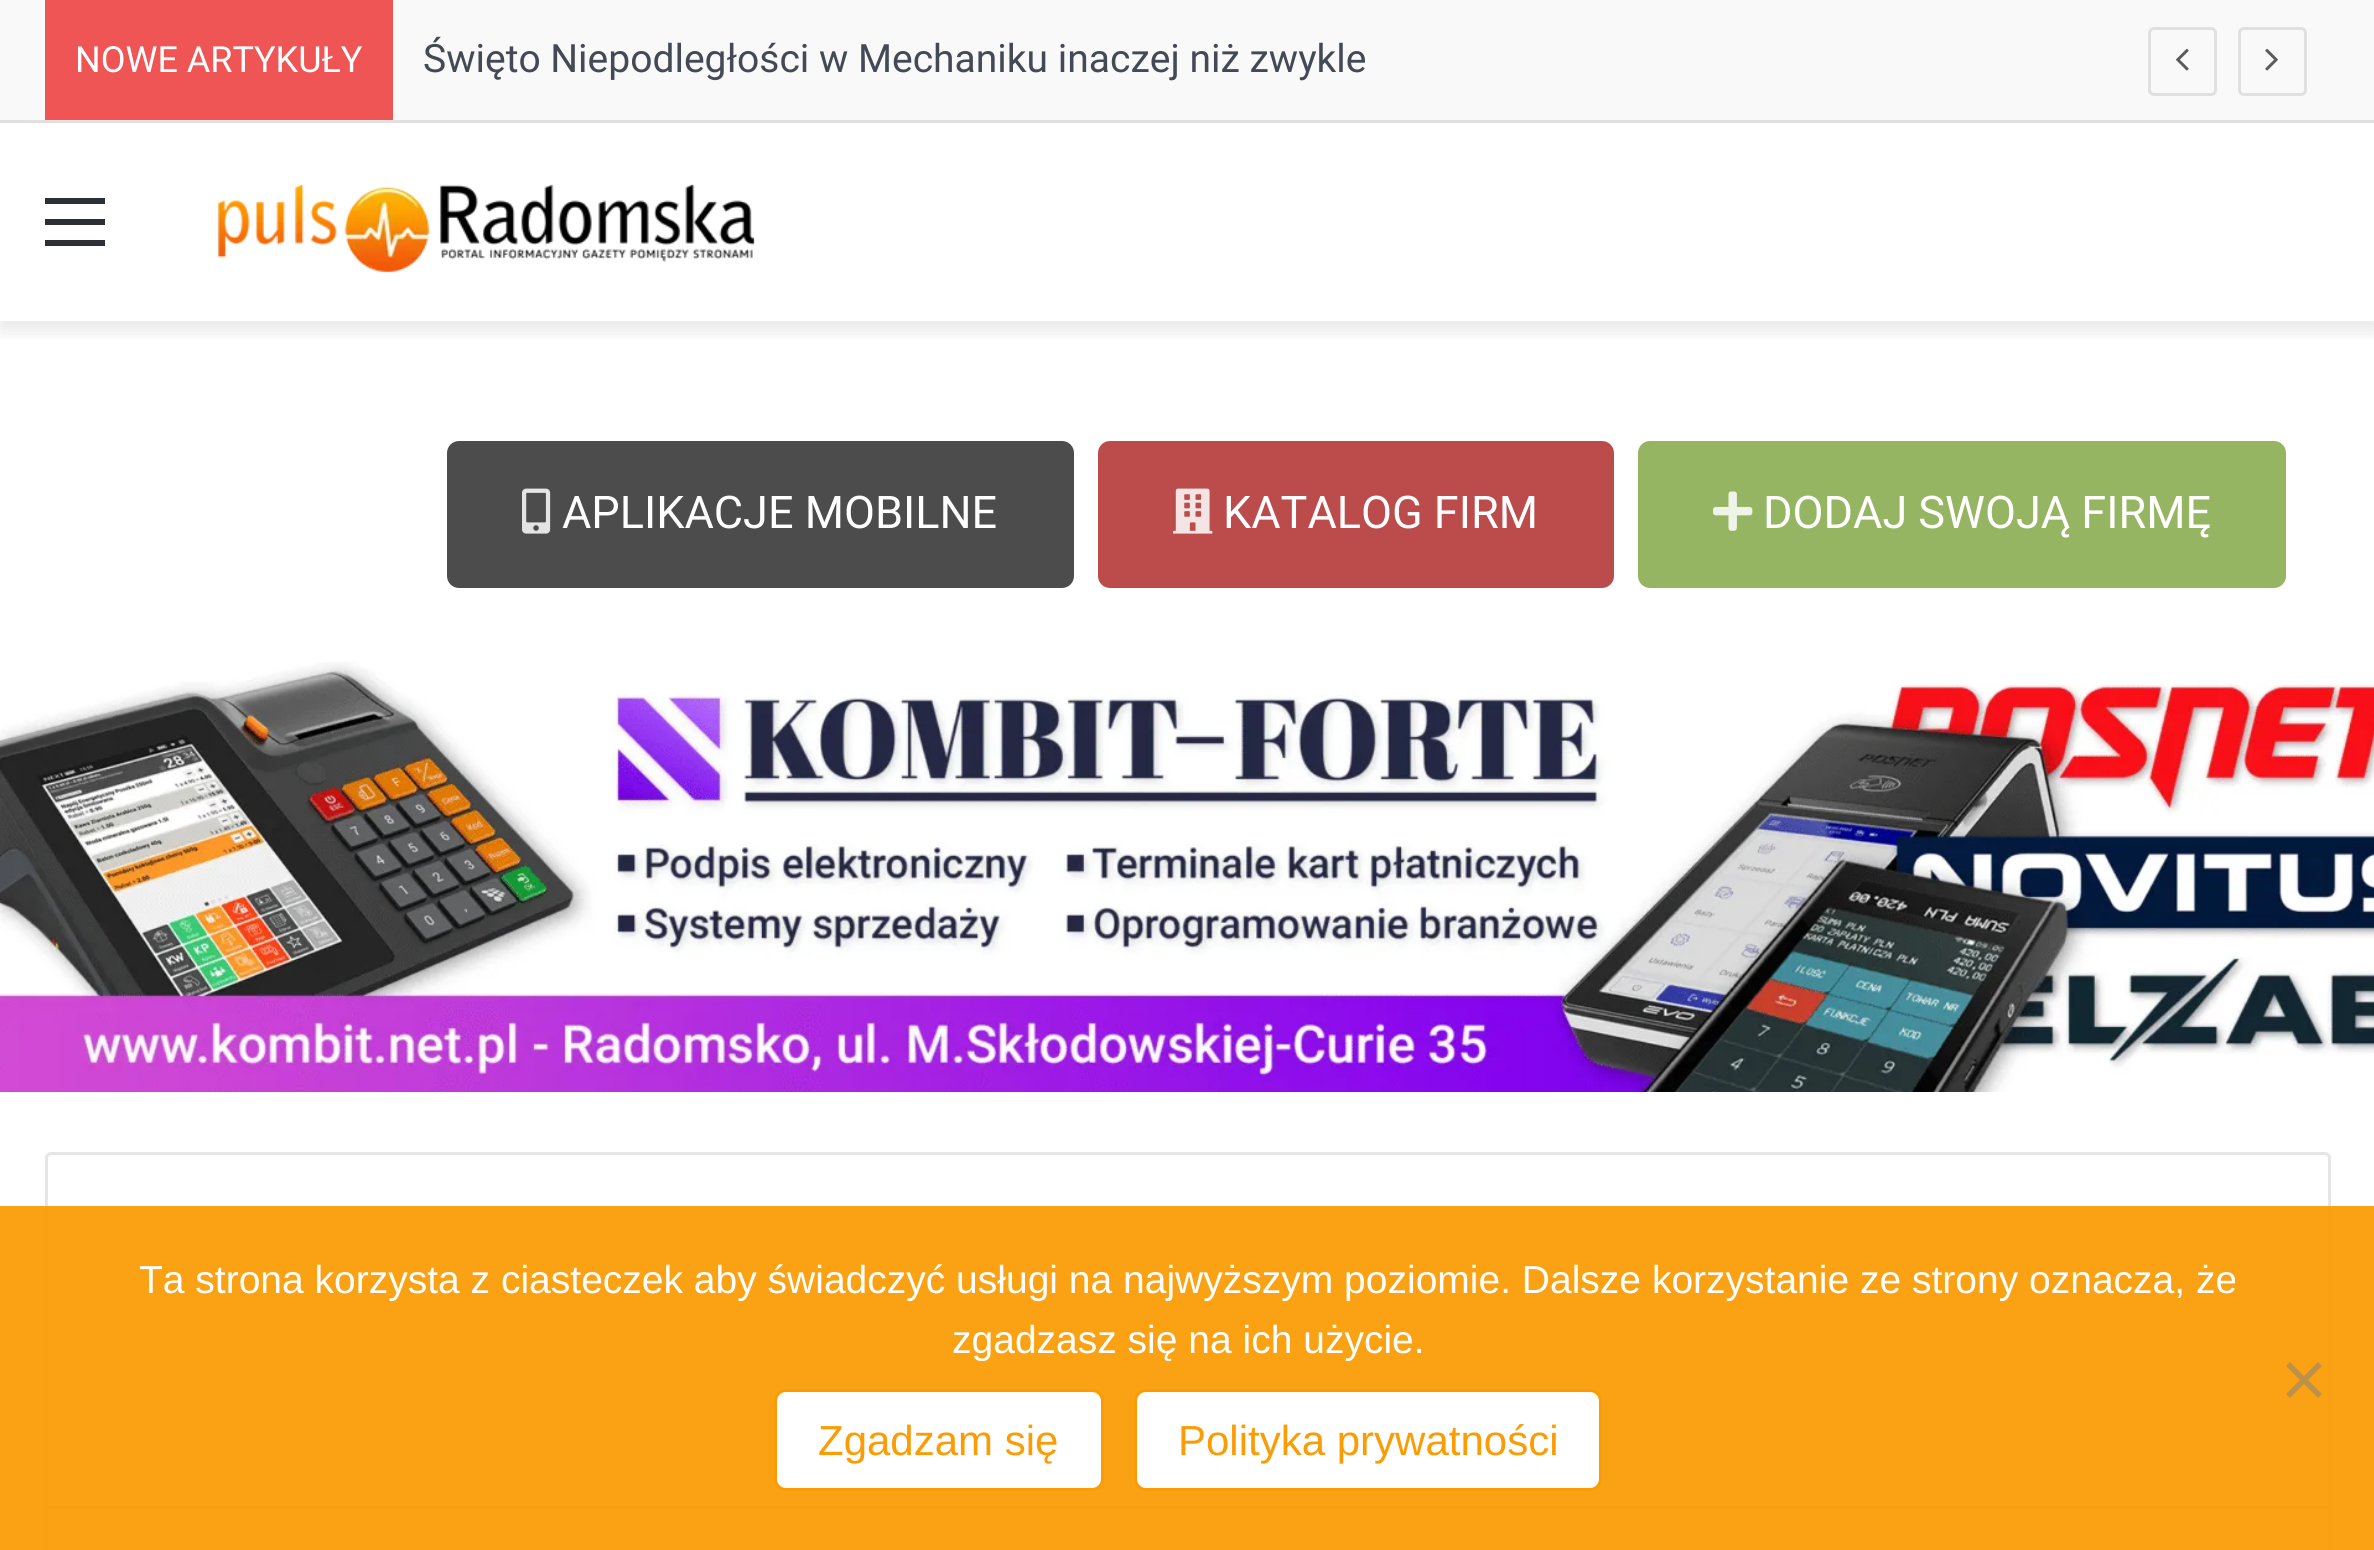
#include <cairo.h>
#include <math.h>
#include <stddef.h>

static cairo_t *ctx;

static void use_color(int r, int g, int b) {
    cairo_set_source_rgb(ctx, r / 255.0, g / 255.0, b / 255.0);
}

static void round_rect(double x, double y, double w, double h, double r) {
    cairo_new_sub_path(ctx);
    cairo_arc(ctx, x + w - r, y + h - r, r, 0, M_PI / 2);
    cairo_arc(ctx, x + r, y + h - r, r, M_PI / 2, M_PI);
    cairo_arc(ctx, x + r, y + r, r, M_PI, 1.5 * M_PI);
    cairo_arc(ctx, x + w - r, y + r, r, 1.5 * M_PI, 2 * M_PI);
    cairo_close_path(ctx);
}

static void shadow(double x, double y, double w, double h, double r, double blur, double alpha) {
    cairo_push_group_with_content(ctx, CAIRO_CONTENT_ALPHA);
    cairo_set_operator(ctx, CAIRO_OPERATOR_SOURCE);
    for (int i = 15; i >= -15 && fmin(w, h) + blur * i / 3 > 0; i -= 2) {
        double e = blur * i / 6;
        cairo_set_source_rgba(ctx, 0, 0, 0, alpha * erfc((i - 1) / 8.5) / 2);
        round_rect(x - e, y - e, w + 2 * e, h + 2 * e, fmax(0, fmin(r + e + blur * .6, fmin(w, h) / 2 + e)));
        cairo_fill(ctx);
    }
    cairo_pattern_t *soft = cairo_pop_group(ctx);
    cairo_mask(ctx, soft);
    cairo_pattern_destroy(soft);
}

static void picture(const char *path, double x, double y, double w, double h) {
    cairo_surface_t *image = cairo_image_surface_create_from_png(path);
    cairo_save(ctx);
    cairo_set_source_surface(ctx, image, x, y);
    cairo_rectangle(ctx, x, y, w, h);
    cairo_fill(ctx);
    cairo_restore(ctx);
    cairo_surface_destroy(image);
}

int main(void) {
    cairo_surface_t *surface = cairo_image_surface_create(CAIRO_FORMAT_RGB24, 2374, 1550);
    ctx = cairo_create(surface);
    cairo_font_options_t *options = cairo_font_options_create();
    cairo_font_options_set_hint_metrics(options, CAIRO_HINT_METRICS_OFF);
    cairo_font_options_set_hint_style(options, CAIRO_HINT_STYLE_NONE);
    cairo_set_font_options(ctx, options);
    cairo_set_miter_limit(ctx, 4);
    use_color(255, 255, 255);
    cairo_paint(ctx);
    cairo_save(ctx);
    cairo_rectangle(ctx, 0, 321, 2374, 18);
    cairo_clip(ctx);
    use_color(0, 0, 0);
    shadow(0, 132, 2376, 198, 0, 10.5, 0.1);
    cairo_restore(ctx);
    use_color(249, 249, 249);
    cairo_rectangle(ctx, 0, 0, 2374, 120);
    cairo_fill(ctx);
    use_color(224, 224, 224);
    cairo_rectangle(ctx, 0, 120, 2374, 3);
    cairo_fill(ctx);
    use_color(240, 85, 85);
    cairo_rectangle(ctx, 45, 0, 348, 120);
    cairo_fill(ctx);
    cairo_select_font_face(ctx, "Roboto", CAIRO_FONT_SLANT_NORMAL, CAIRO_FONT_WEIGHT_NORMAL);
    cairo_set_font_size(ctx, 36);
    use_color(255, 255, 255);
    cairo_move_to(ctx, 75, 72);
    cairo_show_text(ctx, "NOWE ARTYKUŁY");
    cairo_set_font_size(ctx, 39);
    use_color(67, 73, 85);
    cairo_move_to(ctx, 423, 72);
    cairo_show_text(ctx, "Święto Niepodległości w Mechaniku inaczej niż zwykle");
    round_rect(2149.5, 28.5, 66, 66, 4.5);
    use_color(224, 224, 224);
    cairo_set_line_width(ctx, 3);
    cairo_stroke(ctx);
    picture("img1.png", 2176, 48, 13, 23);
    round_rect(2239.5, 28.5, 66, 66, 4.5);
    cairo_stroke(ctx);
    picture("img2.png", 2265, 48, 13, 23);
    use_color(44, 47, 52);
    cairo_rectangle(ctx, 45, 219, 60, 6);
    cairo_fill(ctx);
    cairo_rectangle(ctx, 45, 198, 60, 6);
    cairo_fill(ctx);
    cairo_rectangle(ctx, 45, 240, 60, 6);
    cairo_fill(ctx);
    picture("img3.png", 217, 184, 538, 89);
    use_color(76, 76, 76);
    round_rect(447, 441, 627, 147, 12);
    cairo_fill(ctx);
    picture("img4.png", 522, 488, 29, 46);
    cairo_set_font_size(ctx, 45);
    use_color(255, 255, 255);
    cairo_move_to(ctx, 562, 528);
    cairo_show_text(ctx, "APLIKACJE MOBILNE");
    use_color(188, 75, 76);
    round_rect(1098, 441, 516, 147, 12);
    cairo_fill(ctx);
    picture("img5.png", 1173, 488, 40, 46);
    use_color(255, 255, 255);
    cairo_move_to(ctx, 1223, 528);
    cairo_show_text(ctx, "KATALOG FIRM");
    use_color(150, 181, 98);
    round_rect(1638, 441, 648, 147, 12);
    cairo_fill(ctx);
    picture("img6.png", 1713, 491, 40, 40);
    use_color(255, 255, 255);
    cairo_move_to(ctx, 1763, 528);
    cairo_show_text(ctx, "DODAJ SWOJĄ FIRMĘ");
    picture("img7.png", 0, 662, 2374, 430);
    cairo_new_path(ctx);
    cairo_move_to(ctx, 51, 1153.5);
    cairo_line_to(ctx, 2325, 1153.5);
    cairo_curve_to(ctx, 2327.5, 1153.5, 2329.5, 1155.5, 2329.5, 1158);
    cairo_line_to(ctx, 2329.5, 1507.5);
    cairo_line_to(ctx, 46.5, 1507.5);
    cairo_line_to(ctx, 46.5, 1158);
    cairo_curve_to(ctx, 46.5, 1155.5, 48.5, 1153.5, 51, 1153.5);
    cairo_close_path(ctx);
    use_color(230, 230, 230);
    cairo_stroke(ctx);
    cairo_rectangle(ctx, 2328, 1509, 3, 41);
    cairo_fill(ctx);
    cairo_rectangle(ctx, 45, 1509, 3, 41);
    cairo_fill(ctx);
    cairo_set_source_rgba(ctx, 0.984, 0.612, 0.016, 0.93);
    cairo_rectangle(ctx, 0, 1206, 2374, 344);
    cairo_fill(ctx);
    cairo_select_font_face(ctx, "Liberation Sans", CAIRO_FONT_SLANT_NORMAL, CAIRO_FONT_WEIGHT_NORMAL);
    cairo_set_font_size(ctx, 39);
    use_color(255, 255, 255);
    cairo_move_to(ctx, 139, 1293);
    cairo_show_text(ctx, "Ta strona korzysta z ciasteczek aby świadczyć usługi na najwyższym poziomie. Dalsze korzystanie ze strony oznacza, że");
    cairo_move_to(ctx, 952, 1353);
    cairo_show_text(ctx, "zgadzasz się na ich użycie.");
    use_color(190, 145, 75);
    cairo_new_path(ctx);
    cairo_move_to(ctx, 2318, 1362);
    cairo_line_to(ctx, 2322, 1366);
    cairo_line_to(ctx, 2290, 1398);
    cairo_line_to(ctx, 2286, 1394);
    cairo_close_path(ctx);
    cairo_fill(ctx);
    cairo_new_path(ctx);
    cairo_move_to(ctx, 2286, 1366);
    cairo_line_to(ctx, 2290, 1362);
    cairo_line_to(ctx, 2322, 1394);
    cairo_line_to(ctx, 2318, 1398);
    cairo_close_path(ctx);
    cairo_fill(ctx);
    use_color(255, 255, 255);
    round_rect(775.5, 1390.5, 327, 99, 10.5);
    cairo_fill_preserve(ctx);
    use_color(251, 156, 4);
    cairo_stroke(ctx);
    cairo_set_font_size(ctx, 42);
    cairo_move_to(ctx, 818, 1455);
    cairo_show_text(ctx, "Zgadzam się");
    use_color(255, 255, 255);
    round_rect(1135.5, 1390.5, 465, 99, 10.5);
    cairo_fill_preserve(ctx);
    use_color(251, 156, 4);
    cairo_stroke(ctx);
    cairo_move_to(ctx, 1178, 1455);
    cairo_show_text(ctx, "Polityka prywatności");
    cairo_surface_write_to_png(surface, "result.png");
    cairo_font_options_destroy(options);
    cairo_destroy(ctx);
    cairo_surface_destroy(surface);
    return 0;
}
